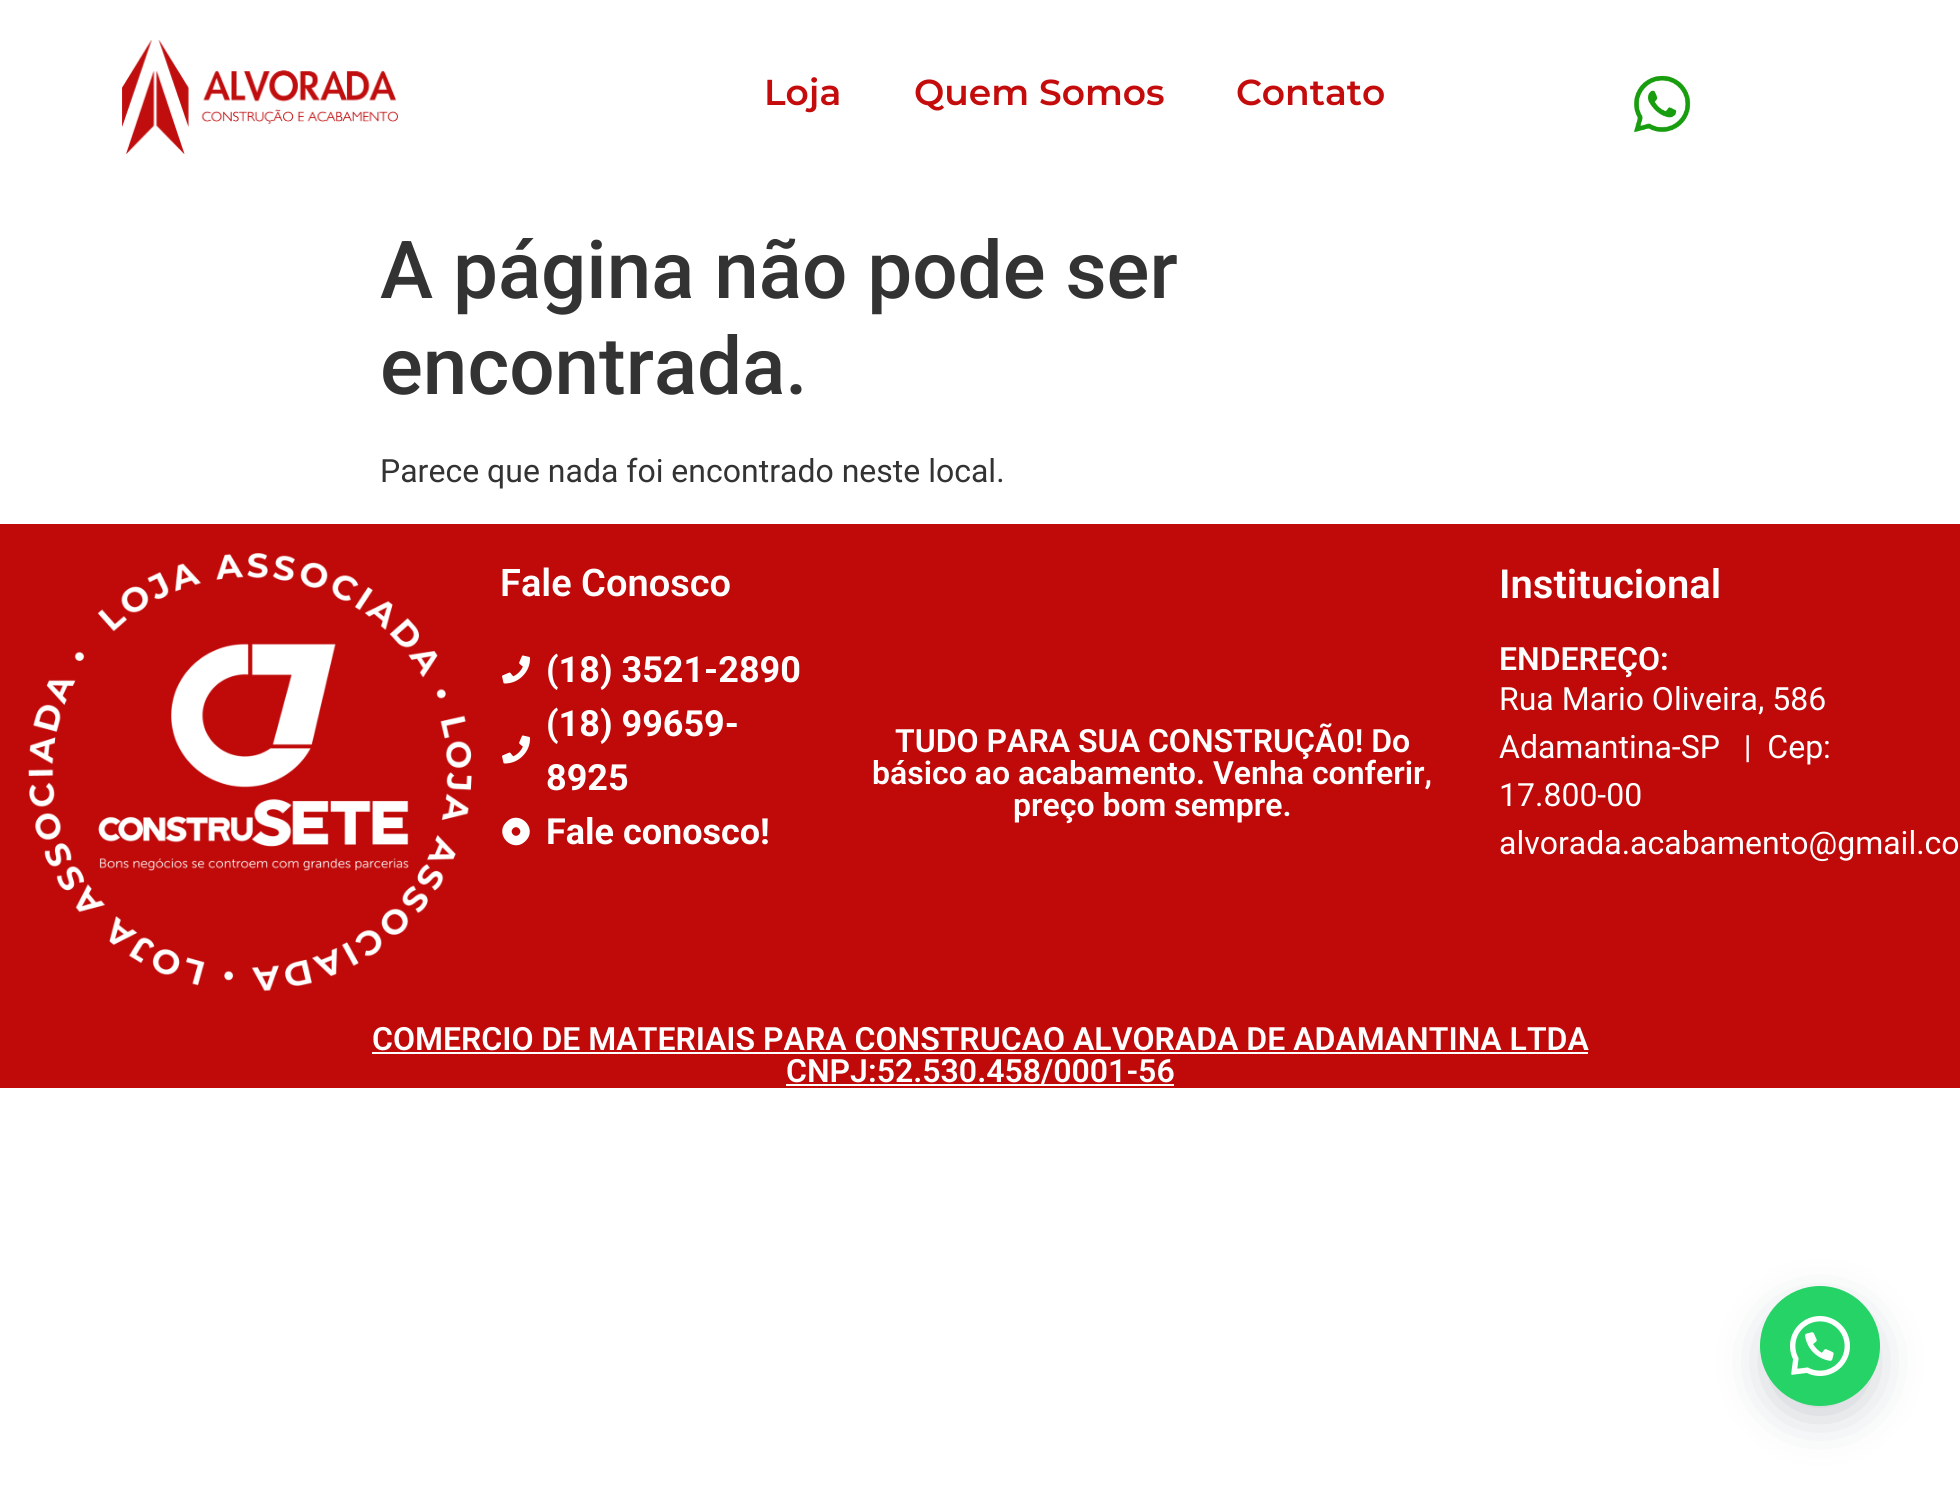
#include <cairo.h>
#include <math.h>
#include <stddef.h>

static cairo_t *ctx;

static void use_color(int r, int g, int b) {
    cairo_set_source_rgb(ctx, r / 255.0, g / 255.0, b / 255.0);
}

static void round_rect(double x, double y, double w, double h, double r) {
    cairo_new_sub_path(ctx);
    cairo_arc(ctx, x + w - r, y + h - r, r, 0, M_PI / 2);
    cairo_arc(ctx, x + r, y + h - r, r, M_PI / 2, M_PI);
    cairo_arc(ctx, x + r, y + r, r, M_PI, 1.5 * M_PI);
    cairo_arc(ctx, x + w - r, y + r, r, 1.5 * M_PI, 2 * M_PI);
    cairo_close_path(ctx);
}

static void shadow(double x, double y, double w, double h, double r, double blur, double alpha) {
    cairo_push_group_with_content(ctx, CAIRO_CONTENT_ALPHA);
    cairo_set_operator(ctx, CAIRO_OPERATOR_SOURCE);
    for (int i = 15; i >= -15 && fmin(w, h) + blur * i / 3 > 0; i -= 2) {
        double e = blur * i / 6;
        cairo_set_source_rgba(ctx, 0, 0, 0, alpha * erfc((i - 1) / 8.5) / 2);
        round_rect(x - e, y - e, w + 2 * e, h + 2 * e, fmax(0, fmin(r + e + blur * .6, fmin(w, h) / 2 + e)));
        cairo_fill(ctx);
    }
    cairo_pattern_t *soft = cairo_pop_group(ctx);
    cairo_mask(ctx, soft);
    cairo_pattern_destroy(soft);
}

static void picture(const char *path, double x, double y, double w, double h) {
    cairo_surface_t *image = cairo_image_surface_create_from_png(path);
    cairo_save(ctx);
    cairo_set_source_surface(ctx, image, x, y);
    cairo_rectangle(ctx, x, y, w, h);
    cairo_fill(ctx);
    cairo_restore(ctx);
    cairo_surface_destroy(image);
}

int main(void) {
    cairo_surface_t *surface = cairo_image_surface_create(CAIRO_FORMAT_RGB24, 1960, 1485);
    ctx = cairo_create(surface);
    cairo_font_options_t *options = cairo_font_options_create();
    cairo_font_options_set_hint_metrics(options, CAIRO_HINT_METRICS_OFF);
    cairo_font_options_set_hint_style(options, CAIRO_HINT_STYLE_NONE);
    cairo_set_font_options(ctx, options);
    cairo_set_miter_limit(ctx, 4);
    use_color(255, 255, 255);
    cairo_paint(ctx);
    picture("img1.png", 122, 40, 276, 114);
    cairo_select_font_face(ctx, "Montserrat SemiBold", CAIRO_FONT_SLANT_NORMAL, CAIRO_FONT_WEIGHT_NORMAL);
    cairo_set_font_size(ctx, 36);
    use_color(196, 12, 12);
    cairo_move_to(ctx, 764, 105);
    cairo_show_text(ctx, "Loja");
    cairo_move_to(ctx, 914, 105);
    cairo_show_text(ctx, "Quem Somos");
    cairo_move_to(ctx, 1236, 105);
    cairo_show_text(ctx, "Contato");
    picture("img2.png", 1634, 75, 57, 58);
    cairo_select_font_face(ctx, "Roboto Medium", CAIRO_FONT_SLANT_NORMAL, CAIRO_FONT_WEIGHT_NORMAL);
    cairo_set_font_size(ctx, 80);
    use_color(51, 51, 51);
    cairo_move_to(ctx, 380, 298);
    cairo_show_text(ctx, "A página não pode ser");
    cairo_move_to(ctx, 380, 394);
    cairo_show_text(ctx, "encontrada.");
    cairo_select_font_face(ctx, "Roboto", CAIRO_FONT_SLANT_NORMAL, CAIRO_FONT_WEIGHT_NORMAL);
    cairo_set_font_size(ctx, 32);
    cairo_move_to(ctx, 380, 482);
    cairo_show_text(ctx, "Parece que nada foi encontrado neste local.");
    use_color(192, 9, 9);
    cairo_rectangle(ctx, 0, 524, 1960, 564);
    cairo_fill(ctx);
    picture("img3.png", 28, 553, 444, 439);
    cairo_select_font_face(ctx, "Roboto SemiBold", CAIRO_FONT_SLANT_NORMAL, CAIRO_FONT_WEIGHT_NORMAL);
    cairo_set_font_size(ctx, 38);
    use_color(255, 255, 255);
    cairo_move_to(ctx, 500, 596);
    cairo_show_text(ctx, "Fale Conosco");
    picture("img4.png", 502, 655, 29, 29);
    cairo_select_font_face(ctx, "Roboto", CAIRO_FONT_SLANT_NORMAL, CAIRO_FONT_WEIGHT_BOLD);
    cairo_set_font_size(ctx, 36);
    cairo_move_to(ctx, 546, 682);
    cairo_show_text(ctx, "(18) 3521-2890");
    picture("img4.png", 502, 735, 29, 29);
    cairo_move_to(ctx, 546, 736);
    cairo_show_text(ctx, "(18) 99659-");
    cairo_move_to(ctx, 546, 790);
    cairo_show_text(ctx, "8925");
    cairo_new_path(ctx);
    cairo_move_to(ctx, 506.5, 822);
    cairo_curve_to(ctx, 519, 809, 538.5, 828.5, 525.5, 841);
    cairo_curve_to(ctx, 513, 854, 493.5, 834.5, 506.5, 822);
    cairo_close_path(ctx);
    cairo_move_to(ctx, 519, 834.5);
    cairo_curve_to(ctx, 523, 830.5, 517, 824.5, 513, 828.5);
    cairo_curve_to(ctx, 509, 832.5, 515, 838.5, 519, 834.5);
    cairo_close_path(ctx);
    cairo_fill(ctx);
    cairo_move_to(ctx, 546, 844);
    cairo_show_text(ctx, "Fale conosco!");
    cairo_select_font_face(ctx, "Roboto SemiBold", CAIRO_FONT_SLANT_NORMAL, CAIRO_FONT_WEIGHT_NORMAL);
    cairo_set_font_size(ctx, 32);
    cairo_move_to(ctx, 895, 752);
    cairo_show_text(ctx, "TUDO PARA SUA CONSTRUÇÃ0! Do");
    cairo_move_to(ctx, 872, 784);
    cairo_show_text(ctx, "básico ao acabamento. Venha conferir,");
    cairo_move_to(ctx, 1013, 816);
    cairo_show_text(ctx, "preço bom sempre.");
    cairo_set_font_size(ctx, 40);
    cairo_move_to(ctx, 1499, 598);
    cairo_show_text(ctx, "Institucional");
    cairo_set_font_size(ctx, 32);
    cairo_move_to(ctx, 1499, 670);
    cairo_show_text(ctx, "ENDEREÇO:");
    cairo_select_font_face(ctx, "Roboto", CAIRO_FONT_SLANT_NORMAL, CAIRO_FONT_WEIGHT_NORMAL);
    cairo_move_to(ctx, 1499, 710);
    cairo_show_text(ctx, "Rua Mario Oliveira, 586");
    cairo_move_to(ctx, 1499, 758);
    cairo_show_text(ctx, "Adamantina-SP   |  Cep:");
    cairo_move_to(ctx, 1499, 806);
    cairo_show_text(ctx, "17.800-00");
    cairo_move_to(ctx, 1499, 854);
    cairo_show_text(ctx, "alvorada.acabamento@gmail.co");
    cairo_select_font_face(ctx, "Roboto SemiBold", CAIRO_FONT_SLANT_NORMAL, CAIRO_FONT_WEIGHT_NORMAL);
    cairo_move_to(ctx, 372, 1050);
    cairo_show_text(ctx, "COMERCIO DE MATERIAIS PARA CONSTRUCAO ALVORADA DE ADAMANTINA LTDA");
    cairo_rectangle(ctx, 372, 1052, 1216, 2);
    cairo_fill(ctx);
    cairo_move_to(ctx, 786, 1082);
    cairo_show_text(ctx, "CNPJ:52.530.458/0001-56");
    cairo_rectangle(ctx, 786, 1084, 388, 2);
    cairo_fill(ctx);
    use_color(45, 62, 79);
    shadow(1770, 1312, 100, 100, 50, 25, 0.3);
    use_color(37, 211, 102);
    cairo_arc(ctx, 1820, 1346, 60, 0, 2 * M_PI);
    cairo_fill(ctx);
    picture("img5.png", 1790, 1316, 60, 60);
    cairo_surface_write_to_png(surface, "result.png");
    cairo_font_options_destroy(options);
    cairo_destroy(ctx);
    cairo_surface_destroy(surface);
    return 0;
}
